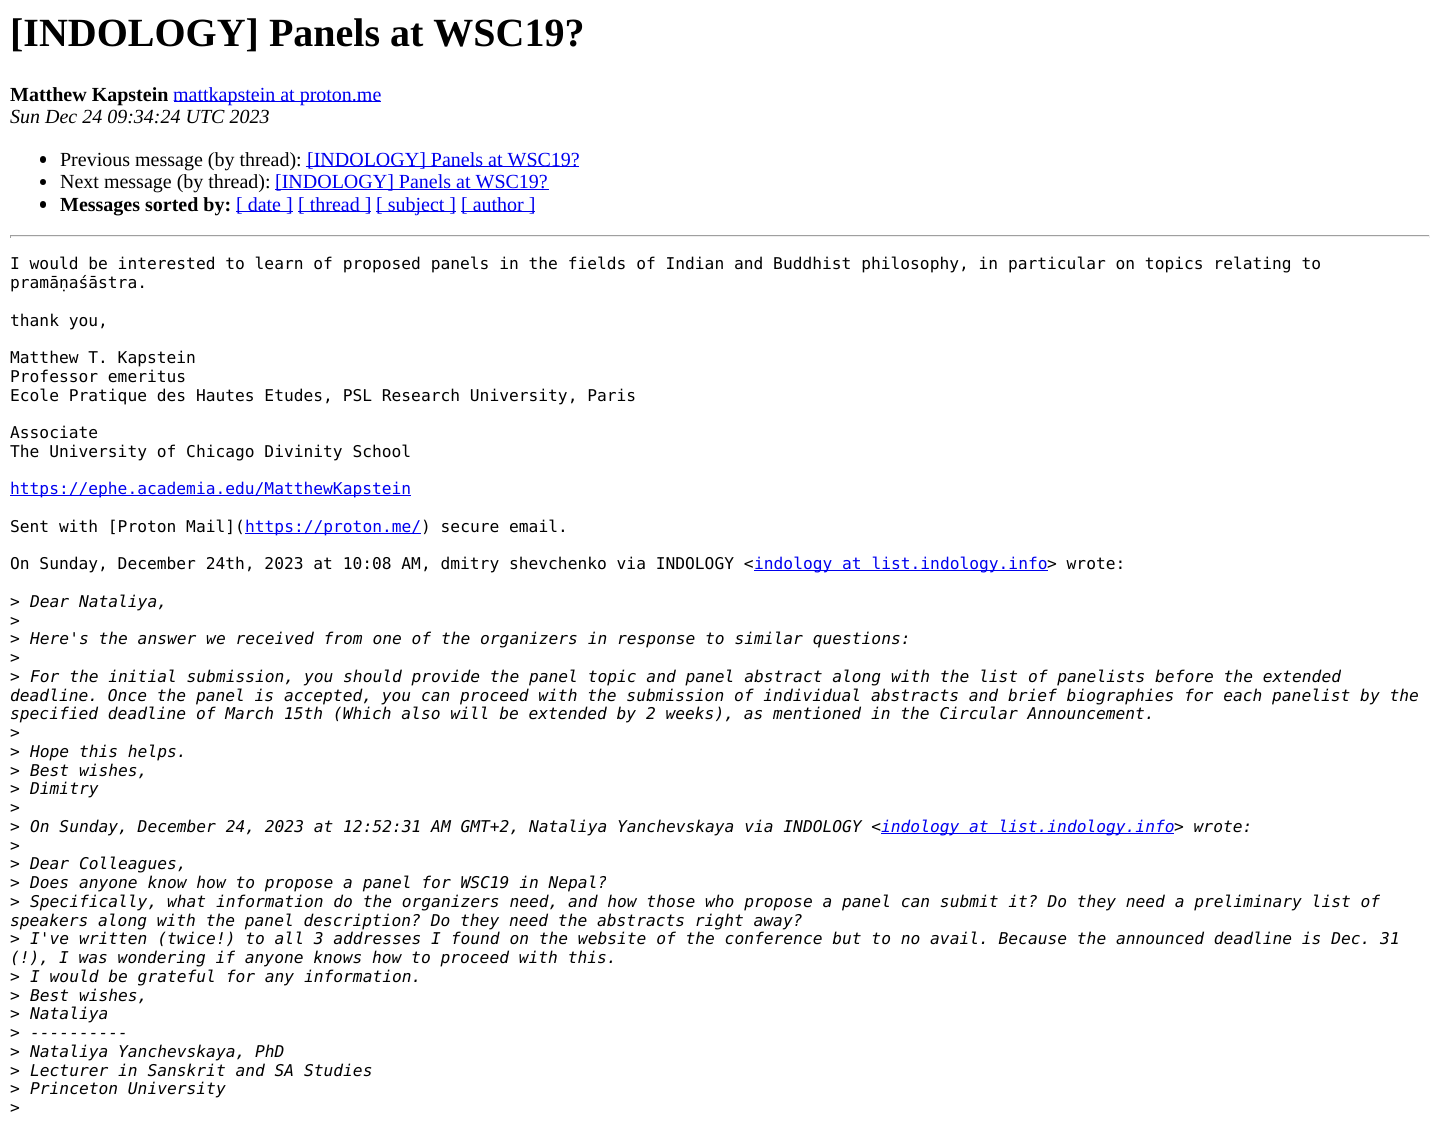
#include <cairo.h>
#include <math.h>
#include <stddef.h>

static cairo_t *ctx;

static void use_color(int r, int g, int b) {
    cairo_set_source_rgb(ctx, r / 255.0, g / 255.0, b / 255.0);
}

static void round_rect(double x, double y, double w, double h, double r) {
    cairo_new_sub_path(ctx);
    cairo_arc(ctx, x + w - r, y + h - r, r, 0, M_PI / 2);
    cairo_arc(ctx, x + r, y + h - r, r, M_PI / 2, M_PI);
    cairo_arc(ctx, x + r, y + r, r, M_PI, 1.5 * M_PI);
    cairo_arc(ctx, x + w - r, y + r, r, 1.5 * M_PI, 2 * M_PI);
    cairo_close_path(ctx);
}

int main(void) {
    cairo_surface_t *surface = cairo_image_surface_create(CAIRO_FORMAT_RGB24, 1439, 1126);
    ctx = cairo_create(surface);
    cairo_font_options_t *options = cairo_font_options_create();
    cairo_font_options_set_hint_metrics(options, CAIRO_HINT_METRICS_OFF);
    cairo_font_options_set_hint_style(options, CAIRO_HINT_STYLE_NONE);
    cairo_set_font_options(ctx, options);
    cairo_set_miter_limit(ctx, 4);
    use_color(255, 255, 255);
    cairo_paint(ctx);
    cairo_select_font_face(ctx, "Liberation Serif", CAIRO_FONT_SLANT_NORMAL, CAIRO_FONT_WEIGHT_BOLD);
    cairo_set_font_size(ctx, 40);
    use_color(0, 0, 0);
    cairo_move_to(ctx, 10, 46);
    cairo_show_text(ctx, "[INDOLOGY] Panels at WSC19?");
    cairo_set_font_size(ctx, 20);
    cairo_move_to(ctx, 10, 101);
    cairo_show_text(ctx, "Matthew Kapstein");
    use_color(0, 0, 238);
    cairo_rectangle(ctx, 174, 101, 207, 1);
    cairo_fill(ctx);
    cairo_select_font_face(ctx, "Liberation Serif", CAIRO_FONT_SLANT_NORMAL, CAIRO_FONT_WEIGHT_NORMAL);
    cairo_move_to(ctx, 173, 101);
    cairo_show_text(ctx, "mattkapstein at proton.me");
    cairo_select_font_face(ctx, "Liberation Serif", CAIRO_FONT_SLANT_ITALIC, CAIRO_FONT_WEIGHT_NORMAL);
    use_color(0, 0, 0);
    cairo_move_to(ctx, 10, 123);
    cairo_show_text(ctx, "Sun Dec 24 09:34:24 UTC 2023");
    round_rect(40, 156, 6, 7, 3);
    cairo_fill(ctx);
    cairo_select_font_face(ctx, "Liberation Serif", CAIRO_FONT_SLANT_NORMAL, CAIRO_FONT_WEIGHT_NORMAL);
    cairo_move_to(ctx, 60, 166);
    cairo_show_text(ctx, "Previous message (by thread):");
    use_color(0, 0, 238);
    cairo_rectangle(ctx, 306, 166, 273, 1);
    cairo_fill(ctx);
    cairo_move_to(ctx, 307, 166);
    cairo_show_text(ctx, "[INDOLOGY] Panels at WSC19?");
    use_color(0, 0, 0);
    cairo_new_path(ctx);
    cairo_arc(ctx, 43, 182, 3, 0, 2 * M_PI);
    cairo_fill(ctx);
    cairo_move_to(ctx, 60, 188);
    cairo_show_text(ctx, "Next message (by thread):");
    use_color(0, 0, 238);
    cairo_rectangle(ctx, 275, 189, 274, 1);
    cairo_fill(ctx);
    cairo_move_to(ctx, 275, 188);
    cairo_show_text(ctx, "[INDOLOGY] Panels at WSC19?");
    use_color(0, 0, 0);
    round_rect(40, 201, 6, 7, 3);
    cairo_fill(ctx);
    cairo_select_font_face(ctx, "Liberation Serif", CAIRO_FONT_SLANT_NORMAL, CAIRO_FONT_WEIGHT_BOLD);
    cairo_move_to(ctx, 60, 211);
    cairo_show_text(ctx, "Messages sorted by:");
    use_color(0, 0, 238);
    cairo_rectangle(ctx, 236, 211, 57, 1);
    cairo_fill(ctx);
    cairo_select_font_face(ctx, "Liberation Serif", CAIRO_FONT_SLANT_NORMAL, CAIRO_FONT_WEIGHT_NORMAL);
    cairo_move_to(ctx, 236, 211);
    cairo_show_text(ctx, "[ date ]");
    cairo_rectangle(ctx, 298, 211, 73, 1);
    cairo_fill(ctx);
    cairo_move_to(ctx, 298, 211);
    cairo_show_text(ctx, "[ thread ]");
    cairo_rectangle(ctx, 376, 211, 80, 1);
    cairo_fill(ctx);
    cairo_move_to(ctx, 376, 211);
    cairo_show_text(ctx, "[ subject ]");
    cairo_rectangle(ctx, 461, 211, 74, 1);
    cairo_fill(ctx);
    cairo_move_to(ctx, 461, 211);
    cairo_show_text(ctx, "[ author ]");
    use_color(159, 159, 159);
    cairo_rectangle(ctx, 10, 235, 1420, 1);
    cairo_fill(ctx);
    use_color(238, 238, 238);
    cairo_rectangle(ctx, 1429, 235, 1, 3);
    cairo_fill(ctx);
    cairo_rectangle(ctx, 10, 236, 1420, 1);
    cairo_fill(ctx);
    use_color(159, 159, 159);
    cairo_rectangle(ctx, 10, 235, 1, 3);
    cairo_fill(ctx);
    cairo_select_font_face(ctx, "DejaVu Sans Mono", CAIRO_FONT_SLANT_NORMAL, CAIRO_FONT_WEIGHT_NORMAL);
    cairo_set_font_size(ctx, 16.25);
    use_color(0, 0, 0);
    cairo_move_to(ctx, 10, 269);
    cairo_show_text(ctx, "I would be interested to learn of proposed panels in the fields of Indian and Buddhist philosophy, in particular on topics relating to");
    cairo_move_to(ctx, 10, 288);
    cairo_show_text(ctx, "pramāṇaśāstra.");
    cairo_move_to(ctx, 10, 326);
    cairo_show_text(ctx, "thank you,");
    cairo_move_to(ctx, 10, 363);
    cairo_show_text(ctx, "Matthew T. Kapstein");
    cairo_move_to(ctx, 10, 382);
    cairo_show_text(ctx, "Professor emeritus");
    cairo_move_to(ctx, 10, 401);
    cairo_show_text(ctx, "Ecole Pratique des Hautes Etudes, PSL Research University, Paris");
    cairo_move_to(ctx, 10, 438);
    cairo_show_text(ctx, "Associate");
    cairo_move_to(ctx, 10, 457);
    cairo_show_text(ctx, "The University of Chicago Divinity School");
    use_color(0, 0, 238);
    cairo_rectangle(ctx, 10, 495, 401, 1);
    cairo_fill(ctx);
    cairo_move_to(ctx, 10, 494);
    cairo_show_text(ctx, "https://ephe.academia.edu/MatthewKapstein");
    use_color(0, 0, 0);
    cairo_move_to(ctx, 10, 532);
    cairo_show_text(ctx, "Sent with [Proton Mail](");
    use_color(0, 0, 238);
    cairo_rectangle(ctx, 245, 533, 176, 1);
    cairo_fill(ctx);
    cairo_move_to(ctx, 245, 532);
    cairo_show_text(ctx, "https://proton.me/");
    use_color(0, 0, 0);
    cairo_move_to(ctx, 421, 532);
    cairo_show_text(ctx, ") secure email.");
    cairo_move_to(ctx, 10, 569);
    cairo_show_text(ctx, "On Sunday, December 24th, 2023 at 10:08 AM, dmitry shevchenko via INDOLOGY <");
    use_color(0, 0, 238);
    cairo_rectangle(ctx, 754, 570, 294, 1);
    cairo_fill(ctx);
    cairo_move_to(ctx, 754, 569);
    cairo_show_text(ctx, "indology at list.indology.info");
    use_color(0, 0, 0);
    cairo_move_to(ctx, 1047, 569);
    cairo_show_text(ctx, "> wrote:");
    cairo_move_to(ctx, 10, 607);
    cairo_show_text(ctx, ">");
    cairo_select_font_face(ctx, "DejaVu Sans Mono", CAIRO_FONT_SLANT_ITALIC, CAIRO_FONT_WEIGHT_NORMAL);
    cairo_move_to(ctx, 30, 607);
    cairo_show_text(ctx, "Dear Nataliya,");
    cairo_select_font_face(ctx, "DejaVu Sans Mono", CAIRO_FONT_SLANT_NORMAL, CAIRO_FONT_WEIGHT_NORMAL);
    cairo_move_to(ctx, 10, 626);
    cairo_show_text(ctx, ">");
    cairo_move_to(ctx, 10, 644);
    cairo_show_text(ctx, ">");
    cairo_select_font_face(ctx, "DejaVu Sans Mono", CAIRO_FONT_SLANT_ITALIC, CAIRO_FONT_WEIGHT_NORMAL);
    cairo_move_to(ctx, 30, 644);
    cairo_show_text(ctx, "Here's the answer we received from one of the organizers in response to similar questions:");
    cairo_select_font_face(ctx, "DejaVu Sans Mono", CAIRO_FONT_SLANT_NORMAL, CAIRO_FONT_WEIGHT_NORMAL);
    cairo_move_to(ctx, 10, 663);
    cairo_show_text(ctx, ">");
    cairo_move_to(ctx, 10, 682);
    cairo_show_text(ctx, ">");
    cairo_select_font_face(ctx, "DejaVu Sans Mono", CAIRO_FONT_SLANT_ITALIC, CAIRO_FONT_WEIGHT_NORMAL);
    cairo_move_to(ctx, 30, 682);
    cairo_show_text(ctx, "For the initial submission, you should provide the panel topic and panel abstract along with the list of panelists before the extended");
    cairo_move_to(ctx, 10, 701);
    cairo_show_text(ctx, "deadline. Once the panel is accepted, you can proceed with the submission of individual abstracts and brief biographies for each panelist by the");
    cairo_move_to(ctx, 10, 719);
    cairo_show_text(ctx, "specified deadline of March 15th (Which also will be extended by 2 weeks), as mentioned in the Circular Announcement.");
    cairo_select_font_face(ctx, "DejaVu Sans Mono", CAIRO_FONT_SLANT_NORMAL, CAIRO_FONT_WEIGHT_NORMAL);
    cairo_move_to(ctx, 10, 738);
    cairo_show_text(ctx, ">");
    cairo_move_to(ctx, 10, 757);
    cairo_show_text(ctx, ">");
    cairo_select_font_face(ctx, "DejaVu Sans Mono", CAIRO_FONT_SLANT_ITALIC, CAIRO_FONT_WEIGHT_NORMAL);
    cairo_move_to(ctx, 30, 757);
    cairo_show_text(ctx, "Hope this helps.");
    cairo_select_font_face(ctx, "DejaVu Sans Mono", CAIRO_FONT_SLANT_NORMAL, CAIRO_FONT_WEIGHT_NORMAL);
    cairo_move_to(ctx, 10, 776);
    cairo_show_text(ctx, ">");
    cairo_select_font_face(ctx, "DejaVu Sans Mono", CAIRO_FONT_SLANT_ITALIC, CAIRO_FONT_WEIGHT_NORMAL);
    cairo_move_to(ctx, 30, 776);
    cairo_show_text(ctx, "Best wishes,");
    cairo_select_font_face(ctx, "DejaVu Sans Mono", CAIRO_FONT_SLANT_NORMAL, CAIRO_FONT_WEIGHT_NORMAL);
    cairo_move_to(ctx, 10, 794);
    cairo_show_text(ctx, ">");
    cairo_select_font_face(ctx, "DejaVu Sans Mono", CAIRO_FONT_SLANT_ITALIC, CAIRO_FONT_WEIGHT_NORMAL);
    cairo_move_to(ctx, 30, 794);
    cairo_show_text(ctx, "Dimitry");
    cairo_select_font_face(ctx, "DejaVu Sans Mono", CAIRO_FONT_SLANT_NORMAL, CAIRO_FONT_WEIGHT_NORMAL);
    cairo_move_to(ctx, 10, 813);
    cairo_show_text(ctx, ">");
    cairo_move_to(ctx, 10, 832);
    cairo_show_text(ctx, ">");
    cairo_select_font_face(ctx, "DejaVu Sans Mono", CAIRO_FONT_SLANT_ITALIC, CAIRO_FONT_WEIGHT_NORMAL);
    cairo_move_to(ctx, 30, 832);
    cairo_show_text(ctx, "On Sunday, December 24, 2023 at 12:52:31 AM GMT+2, Nataliya Yanchevskaya via INDOLOGY <");
    use_color(0, 0, 238);
    cairo_rectangle(ctx, 881, 833, 293, 1);
    cairo_fill(ctx);
    cairo_move_to(ctx, 881, 832);
    cairo_show_text(ctx, "indology at list.indology.info");
    use_color(0, 0, 0);
    cairo_move_to(ctx, 1174, 832);
    cairo_show_text(ctx, "> wrote:");
    cairo_select_font_face(ctx, "DejaVu Sans Mono", CAIRO_FONT_SLANT_NORMAL, CAIRO_FONT_WEIGHT_NORMAL);
    cairo_move_to(ctx, 10, 851);
    cairo_show_text(ctx, ">");
    cairo_move_to(ctx, 10, 869);
    cairo_show_text(ctx, ">");
    cairo_select_font_face(ctx, "DejaVu Sans Mono", CAIRO_FONT_SLANT_ITALIC, CAIRO_FONT_WEIGHT_NORMAL);
    cairo_move_to(ctx, 30, 869);
    cairo_show_text(ctx, "Dear Colleagues,");
    cairo_select_font_face(ctx, "DejaVu Sans Mono", CAIRO_FONT_SLANT_NORMAL, CAIRO_FONT_WEIGHT_NORMAL);
    cairo_move_to(ctx, 10, 888);
    cairo_show_text(ctx, ">");
    cairo_select_font_face(ctx, "DejaVu Sans Mono", CAIRO_FONT_SLANT_ITALIC, CAIRO_FONT_WEIGHT_NORMAL);
    cairo_move_to(ctx, 30, 888);
    cairo_show_text(ctx, "Does anyone know how to propose a panel for WSC19 in Nepal?");
    cairo_select_font_face(ctx, "DejaVu Sans Mono", CAIRO_FONT_SLANT_NORMAL, CAIRO_FONT_WEIGHT_NORMAL);
    cairo_move_to(ctx, 10, 907);
    cairo_show_text(ctx, ">");
    cairo_select_font_face(ctx, "DejaVu Sans Mono", CAIRO_FONT_SLANT_ITALIC, CAIRO_FONT_WEIGHT_NORMAL);
    cairo_move_to(ctx, 30, 907);
    cairo_show_text(ctx, "Specifically, what information do the organizers need, and how those who propose a panel can submit it? Do they need a preliminary list of");
    cairo_move_to(ctx, 10, 926);
    cairo_show_text(ctx, "speakers along with the panel description? Do they need the abstracts right away?");
    cairo_select_font_face(ctx, "DejaVu Sans Mono", CAIRO_FONT_SLANT_NORMAL, CAIRO_FONT_WEIGHT_NORMAL);
    cairo_move_to(ctx, 10, 944);
    cairo_show_text(ctx, ">");
    cairo_select_font_face(ctx, "DejaVu Sans Mono", CAIRO_FONT_SLANT_ITALIC, CAIRO_FONT_WEIGHT_NORMAL);
    cairo_move_to(ctx, 30, 944);
    cairo_show_text(ctx, "I've written (twice!) to all 3 addresses I found on the website of the conference but to no avail. Because the announced deadline is Dec. 31");
    cairo_move_to(ctx, 10, 963);
    cairo_show_text(ctx, "(!), I was wondering if anyone knows how to proceed with this.");
    cairo_select_font_face(ctx, "DejaVu Sans Mono", CAIRO_FONT_SLANT_NORMAL, CAIRO_FONT_WEIGHT_NORMAL);
    cairo_move_to(ctx, 10, 982);
    cairo_show_text(ctx, ">");
    cairo_select_font_face(ctx, "DejaVu Sans Mono", CAIRO_FONT_SLANT_ITALIC, CAIRO_FONT_WEIGHT_NORMAL);
    cairo_move_to(ctx, 30, 982);
    cairo_show_text(ctx, "I would be grateful for any information.");
    cairo_select_font_face(ctx, "DejaVu Sans Mono", CAIRO_FONT_SLANT_NORMAL, CAIRO_FONT_WEIGHT_NORMAL);
    cairo_move_to(ctx, 10, 1001);
    cairo_show_text(ctx, ">");
    cairo_select_font_face(ctx, "DejaVu Sans Mono", CAIRO_FONT_SLANT_ITALIC, CAIRO_FONT_WEIGHT_NORMAL);
    cairo_move_to(ctx, 30, 1001);
    cairo_show_text(ctx, "Best wishes,");
    cairo_select_font_face(ctx, "DejaVu Sans Mono", CAIRO_FONT_SLANT_NORMAL, CAIRO_FONT_WEIGHT_NORMAL);
    cairo_move_to(ctx, 10, 1019);
    cairo_show_text(ctx, ">");
    cairo_select_font_face(ctx, "DejaVu Sans Mono", CAIRO_FONT_SLANT_ITALIC, CAIRO_FONT_WEIGHT_NORMAL);
    cairo_move_to(ctx, 30, 1019);
    cairo_show_text(ctx, "Nataliya");
    cairo_select_font_face(ctx, "DejaVu Sans Mono", CAIRO_FONT_SLANT_NORMAL, CAIRO_FONT_WEIGHT_NORMAL);
    cairo_move_to(ctx, 10, 1038);
    cairo_show_text(ctx, ">");
    cairo_select_font_face(ctx, "DejaVu Sans Mono", CAIRO_FONT_SLANT_ITALIC, CAIRO_FONT_WEIGHT_NORMAL);
    cairo_move_to(ctx, 30, 1038);
    cairo_show_text(ctx, "----------");
    cairo_select_font_face(ctx, "DejaVu Sans Mono", CAIRO_FONT_SLANT_NORMAL, CAIRO_FONT_WEIGHT_NORMAL);
    cairo_move_to(ctx, 10, 1057);
    cairo_show_text(ctx, ">");
    cairo_select_font_face(ctx, "DejaVu Sans Mono", CAIRO_FONT_SLANT_ITALIC, CAIRO_FONT_WEIGHT_NORMAL);
    cairo_move_to(ctx, 30, 1057);
    cairo_show_text(ctx, "Nataliya Yanchevskaya, PhD");
    cairo_select_font_face(ctx, "DejaVu Sans Mono", CAIRO_FONT_SLANT_NORMAL, CAIRO_FONT_WEIGHT_NORMAL);
    cairo_move_to(ctx, 10, 1076);
    cairo_show_text(ctx, ">");
    cairo_select_font_face(ctx, "DejaVu Sans Mono", CAIRO_FONT_SLANT_ITALIC, CAIRO_FONT_WEIGHT_NORMAL);
    cairo_move_to(ctx, 30, 1076);
    cairo_show_text(ctx, "Lecturer in Sanskrit and SA Studies");
    cairo_select_font_face(ctx, "DejaVu Sans Mono", CAIRO_FONT_SLANT_NORMAL, CAIRO_FONT_WEIGHT_NORMAL);
    cairo_move_to(ctx, 10, 1094);
    cairo_show_text(ctx, ">");
    cairo_select_font_face(ctx, "DejaVu Sans Mono", CAIRO_FONT_SLANT_ITALIC, CAIRO_FONT_WEIGHT_NORMAL);
    cairo_move_to(ctx, 30, 1094);
    cairo_show_text(ctx, "Princeton University");
    cairo_select_font_face(ctx, "DejaVu Sans Mono", CAIRO_FONT_SLANT_NORMAL, CAIRO_FONT_WEIGHT_NORMAL);
    cairo_move_to(ctx, 10, 1113);
    cairo_show_text(ctx, ">");
    cairo_surface_write_to_png(surface, "result.png");
    cairo_font_options_destroy(options);
    cairo_destroy(ctx);
    cairo_surface_destroy(surface);
    return 0;
}
